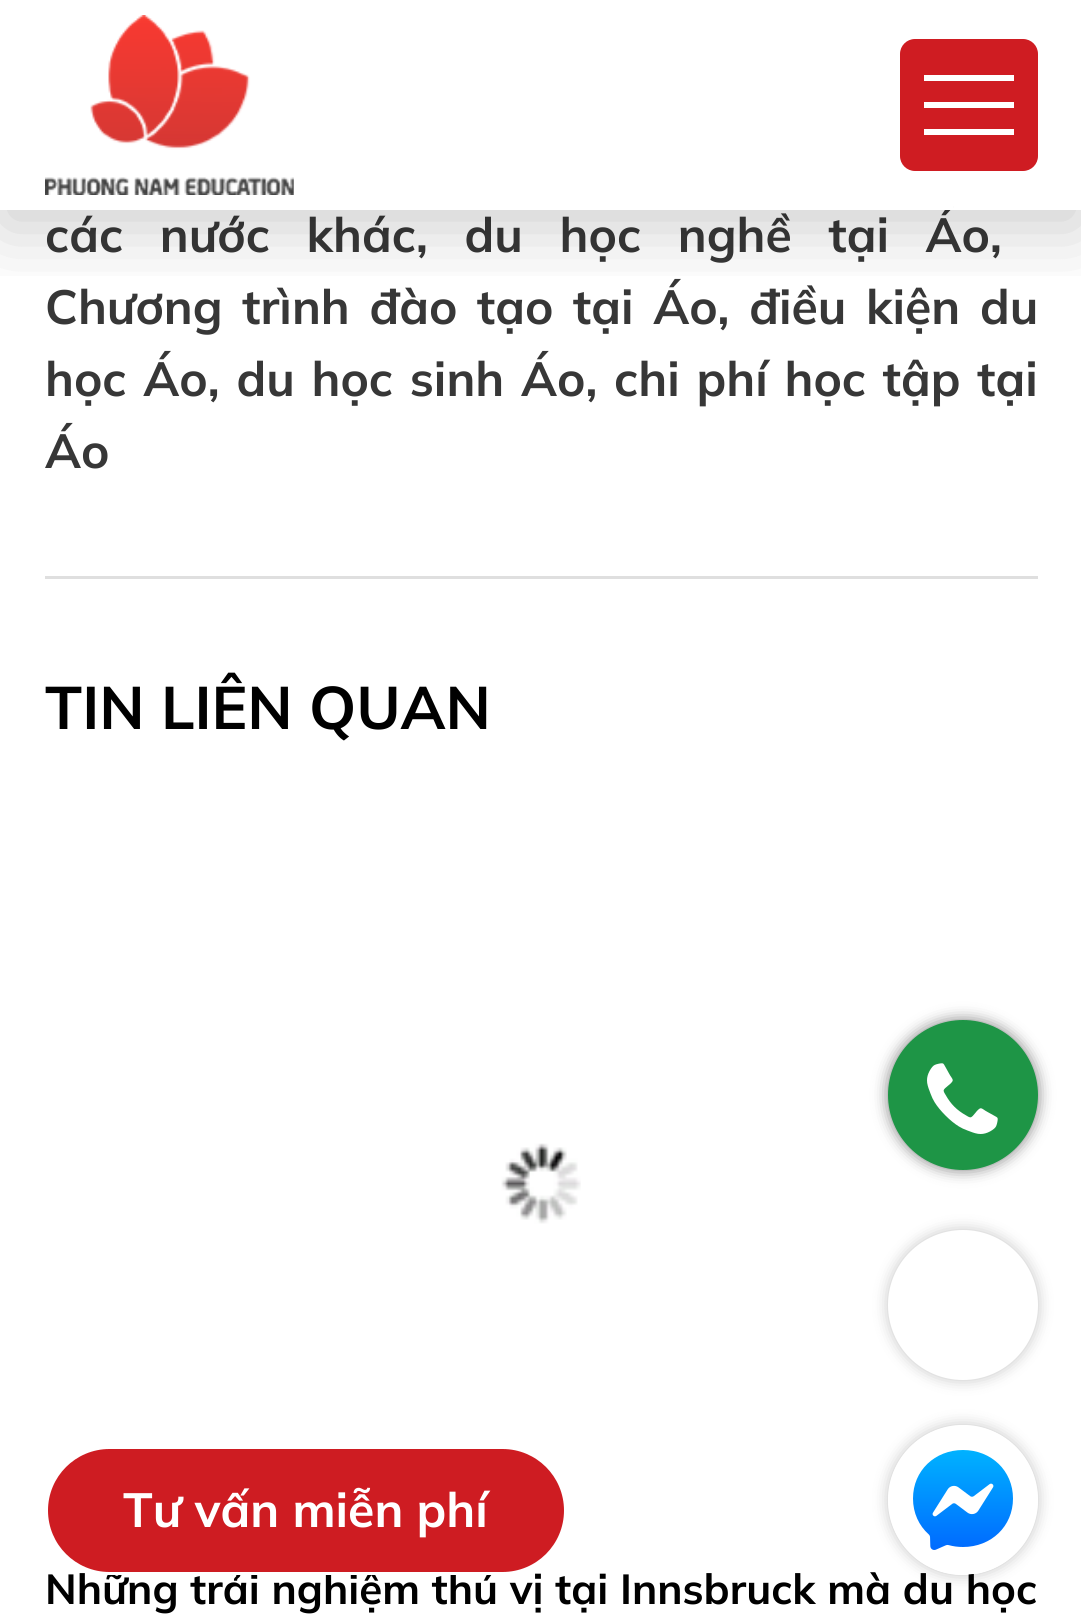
#include <cairo.h>
#include <math.h>
#include <stddef.h>

static cairo_t *ctx;

static void use_color(int r, int g, int b) {
    cairo_set_source_rgb(ctx, r / 255.0, g / 255.0, b / 255.0);
}

static void spaced_text(double x, double y, const char *s, double letter, double word) {
    cairo_move_to(ctx, x, y);
    while (*s) {
        char ch[5] = {0};
        int n = 0;
        do ch[n++] = *s++; while ((*s & 0xC0) == 0x80);
        cairo_show_text(ctx, ch);
        cairo_rel_move_to(ctx, letter + word * (*ch == ' '), 0);
    }
}

static void round_rect(double x, double y, double w, double h, double r) {
    cairo_new_sub_path(ctx);
    cairo_arc(ctx, x + w - r, y + h - r, r, 0, M_PI / 2);
    cairo_arc(ctx, x + r, y + h - r, r, M_PI / 2, M_PI);
    cairo_arc(ctx, x + r, y + r, r, M_PI, 1.5 * M_PI);
    cairo_arc(ctx, x + w - r, y + r, r, 1.5 * M_PI, 2 * M_PI);
    cairo_close_path(ctx);
}

static void shadow(double x, double y, double w, double h, double r, double blur, double alpha) {
    cairo_push_group_with_content(ctx, CAIRO_CONTENT_ALPHA);
    cairo_set_operator(ctx, CAIRO_OPERATOR_SOURCE);
    for (int i = 15; i >= -15 && fmin(w, h) + blur * i / 3 > 0; i -= 2) {
        double e = blur * i / 6;
        cairo_set_source_rgba(ctx, 0, 0, 0, alpha * erfc((i - 1) / 8.5) / 2);
        round_rect(x - e, y - e, w + 2 * e, h + 2 * e, fmax(0, fmin(r + e + blur * .6, fmin(w, h) / 2 + e)));
        cairo_fill(ctx);
    }
    cairo_pattern_t *soft = cairo_pop_group(ctx);
    cairo_mask(ctx, soft);
    cairo_pattern_destroy(soft);
}

static void picture(const char *path, double x, double y, double w, double h) {
    cairo_surface_t *image = cairo_image_surface_create_from_png(path);
    cairo_save(ctx);
    cairo_set_source_surface(ctx, image, x, y);
    cairo_rectangle(ctx, x, y, w, h);
    cairo_fill(ctx);
    cairo_restore(ctx);
    cairo_surface_destroy(image);
}

int main(void) {
    cairo_surface_t *surface = cairo_image_surface_create(CAIRO_FORMAT_RGB24, 1081, 1619);
    ctx = cairo_create(surface);
    cairo_font_options_t *options = cairo_font_options_create();
    cairo_font_options_set_hint_metrics(options, CAIRO_HINT_METRICS_OFF);
    cairo_font_options_set_hint_style(options, CAIRO_HINT_STYLE_NONE);
    cairo_set_font_options(ctx, options);
    cairo_set_miter_limit(ctx, 4);
    use_color(255, 255, 255);
    cairo_paint(ctx);
    cairo_select_font_face(ctx, "Mulish", CAIRO_FONT_SLANT_NORMAL, CAIRO_FONT_WEIGHT_BOLD);
    cairo_set_font_size(ctx, 48);
    use_color(55, 55, 55);
    spaced_text(45, 252, "các nước khác, du học nghề tại Áo,", 0, 23.5);
    spaced_text(45, 324, "Chương trình đào tạo tại Áo, điều kiện du", 0, 6.5);
    spaced_text(45, 396, "học Áo, du học sinh Áo, chi phí học tập tại", 0, 3.6);
    cairo_move_to(ctx, 45, 468);
    cairo_show_text(ctx, "Áo");
    use_color(223, 223, 223);
    cairo_rectangle(ctx, 45, 576, 993, 3);
    cairo_fill(ctx);
    cairo_set_font_size(ctx, 60);
    use_color(0, 0, 0);
    cairo_move_to(ctx, 45, 729);
    cairo_show_text(ctx, "TIN LIÊN QUAN");
    picture("img1.png", 501, 1143, 80, 81);
    cairo_set_font_size(ctx, 42);
    spaced_text(45, 1604, "Những trải nghiệm thú vị tại Innsbruck mà du học", 0, 0.25);
    use_color(0, 0, 0);
    shadow(888, 1020, 150, 150, 75, 7.5, 0.5);
    use_color(30, 149, 70);
    cairo_arc(ctx, 963, 1095, 75, 0, 2 * M_PI);
    cairo_fill(ctx);
    picture("img2.png", 927, 1063, 71, 71);
    use_color(0, 0, 0);
    shadow(888, 1230, 150, 150, 75, 7.5, 0.23);
    use_color(255, 255, 255);
    cairo_arc(ctx, 963, 1305, 75, 0, 2 * M_PI);
    cairo_fill(ctx);
    cairo_rectangle(ctx, 944, 206, 9, 4);
    cairo_fill(ctx);
    cairo_save(ctx);
    cairo_rectangle(ctx, 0, 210, 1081, 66);
    cairo_clip(ctx);
    use_color(0, 0, 0);
    shadow(0, 18, 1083, 210, 0, 37.5, 0.2);
    cairo_restore(ctx);
    picture("img3.png", 45, 15, 249, 180);
    use_color(207, 28, 34);
    round_rect(900, 39, 138, 132, 15);
    cairo_fill(ctx);
    use_color(255, 255, 255);
    cairo_rectangle(ctx, 924, 75, 90, 6);
    cairo_fill(ctx);
    cairo_rectangle(ctx, 924, 102, 90, 6);
    cairo_fill(ctx);
    cairo_rectangle(ctx, 924, 129, 90, 6);
    cairo_fill(ctx);
    use_color(206, 28, 34);
    round_rect(46.5, 1447.5, 519, 126, 63);
    cairo_fill_preserve(ctx);
    use_color(255, 255, 255);
    cairo_set_line_width(ctx, 3);
    cairo_stroke(ctx);
    cairo_set_font_size(ctx, 48);
    cairo_move_to(ctx, 123, 1527);
    cairo_show_text(ctx, "Tư vấn miễn phí");
    cairo_save(ctx);
    cairo_set_fill_rule(ctx, CAIRO_FILL_RULE_EVEN_ODD);
    cairo_new_path(ctx);
    cairo_move_to(ctx, 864, 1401);
    cairo_line_to(ctx, 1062, 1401);
    cairo_line_to(ctx, 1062, 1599);
    cairo_line_to(ctx, 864, 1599);
    cairo_close_path(ctx);
    cairo_move_to(ctx, 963, 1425);
    cairo_curve_to(ctx, 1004.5, 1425, 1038, 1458.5, 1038, 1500);
    cairo_curve_to(ctx, 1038, 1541.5, 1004.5, 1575, 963, 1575);
    cairo_curve_to(ctx, 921.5, 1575, 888, 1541.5, 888, 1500);
    cairo_curve_to(ctx, 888, 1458.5, 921.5, 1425, 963, 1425);
    cairo_close_path(ctx);
    cairo_clip(ctx);
    use_color(0, 0, 0);
    shadow(888, 1425, 150, 150, 75, 7.5, 0.23);
    cairo_restore(ctx);
    picture("img4.png", 913, 1450, 100, 125);
    cairo_surface_write_to_png(surface, "result.png");
    cairo_font_options_destroy(options);
    cairo_destroy(ctx);
    cairo_surface_destroy(surface);
    return 0;
}
